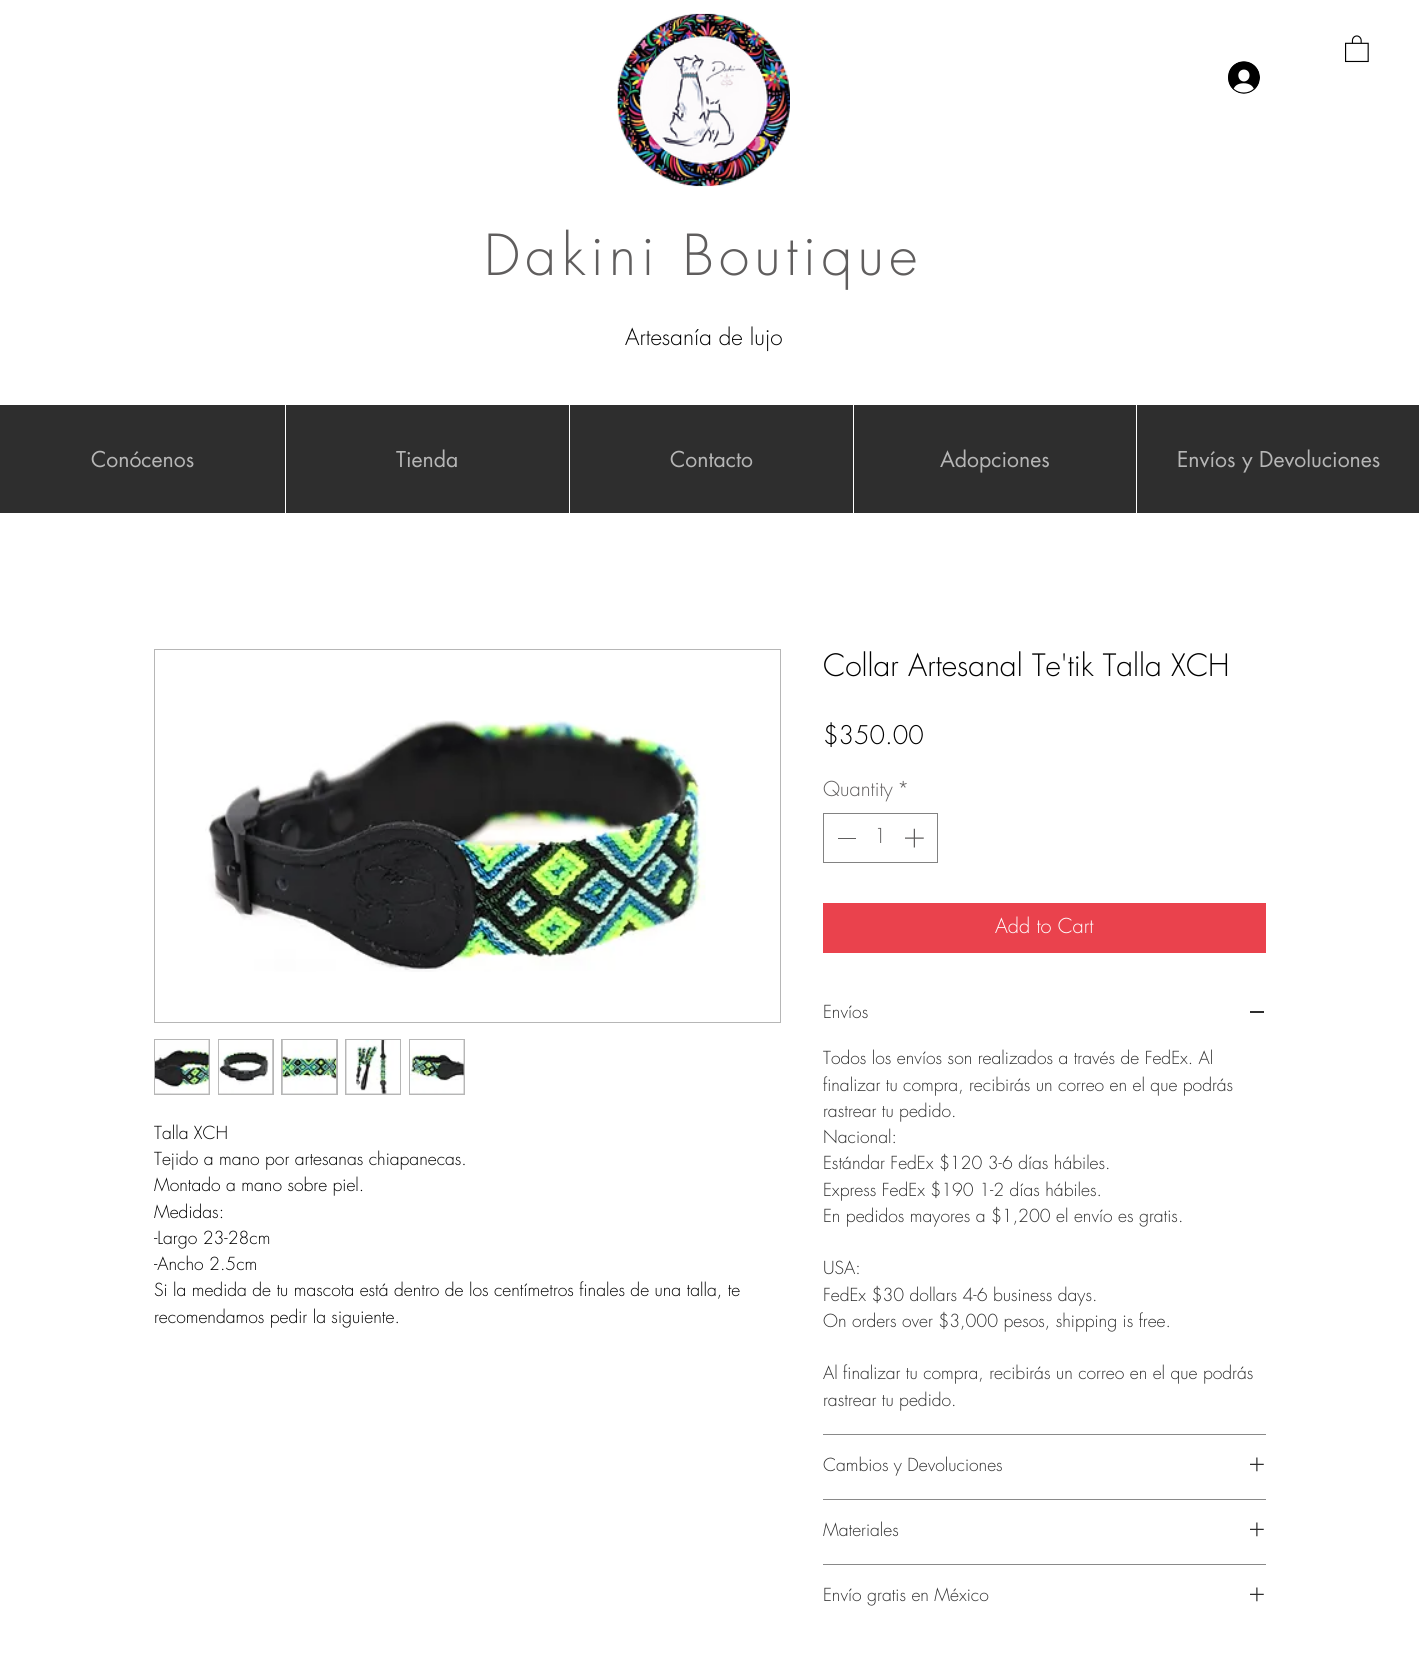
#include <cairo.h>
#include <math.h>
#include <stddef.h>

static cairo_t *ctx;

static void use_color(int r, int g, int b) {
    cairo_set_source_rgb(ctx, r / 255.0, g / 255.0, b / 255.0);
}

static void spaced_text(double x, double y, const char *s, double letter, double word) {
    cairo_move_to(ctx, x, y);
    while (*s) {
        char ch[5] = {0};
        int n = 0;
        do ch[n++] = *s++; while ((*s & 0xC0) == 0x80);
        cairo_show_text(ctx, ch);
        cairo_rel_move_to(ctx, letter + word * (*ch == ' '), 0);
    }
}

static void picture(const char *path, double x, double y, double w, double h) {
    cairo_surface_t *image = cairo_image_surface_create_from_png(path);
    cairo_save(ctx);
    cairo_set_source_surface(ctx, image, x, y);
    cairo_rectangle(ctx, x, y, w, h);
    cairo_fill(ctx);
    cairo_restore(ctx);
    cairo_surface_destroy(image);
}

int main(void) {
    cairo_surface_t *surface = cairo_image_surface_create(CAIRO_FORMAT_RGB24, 1419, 1672);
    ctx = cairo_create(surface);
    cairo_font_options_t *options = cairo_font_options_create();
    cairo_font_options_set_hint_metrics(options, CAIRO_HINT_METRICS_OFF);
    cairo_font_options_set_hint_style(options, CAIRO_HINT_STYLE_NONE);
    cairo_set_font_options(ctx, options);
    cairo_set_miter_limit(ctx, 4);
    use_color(255, 255, 255);
    cairo_paint(ctx);
    picture("img1.png", 1345, 35, 24, 28);
    picture("img2.png", 1228, 61, 32, 33);
    picture("img3.png", 617, 13, 173, 174);
    cairo_select_font_face(ctx, "futura Light", CAIRO_FONT_SLANT_NORMAL, CAIRO_FONT_WEIGHT_NORMAL);
    cairo_set_font_size(ctx, 55);
    use_color(96, 94, 94);
    spaced_text(484, 275, "Dakini Boutique", 5.5, 0);
    cairo_set_font_size(ctx, 22.5);
    use_color(0, 0, 0);
    cairo_move_to(ctx, 625, 345);
    cairo_show_text(ctx, "Artesanía de lujo");
    use_color(46, 46, 46);
    cairo_rectangle(ctx, 0, 405, 1419, 108);
    cairo_fill(ctx);
    cairo_select_font_face(ctx, "futura", CAIRO_FONT_SLANT_NORMAL, CAIRO_FONT_WEIGHT_NORMAL);
    cairo_set_font_size(ctx, 21.25);
    use_color(182, 182, 182);
    cairo_move_to(ctx, 91, 467);
    cairo_show_text(ctx, "Conócenos");
    use_color(255, 255, 255);
    cairo_rectangle(ctx, 285, 405, 1, 108);
    cairo_fill(ctx);
    use_color(182, 182, 182);
    cairo_move_to(ctx, 396, 467);
    cairo_show_text(ctx, "Tienda");
    use_color(255, 255, 255);
    cairo_rectangle(ctx, 569, 405, 1, 108);
    cairo_fill(ctx);
    use_color(182, 182, 182);
    cairo_move_to(ctx, 670, 467);
    cairo_show_text(ctx, "Contacto");
    use_color(255, 255, 255);
    cairo_rectangle(ctx, 853, 405, 1, 108);
    cairo_fill(ctx);
    use_color(182, 182, 182);
    cairo_move_to(ctx, 940, 467);
    cairo_show_text(ctx, "Adopciones");
    use_color(255, 255, 255);
    cairo_rectangle(ctx, 1136, 405, 1, 108);
    cairo_fill(ctx);
    use_color(182, 182, 182);
    cairo_move_to(ctx, 1177, 467);
    cairo_show_text(ctx, "Envíos y Devoluciones");
    cairo_rectangle(ctx, 154.5, 649.5, 626, 373);
    cairo_set_line_width(ctx, 1);
    cairo_stroke(ctx);
    picture("img4.png", 205, 720, 501, 252);
    cairo_rectangle(ctx, 154, 1039, 56, 56);
    cairo_fill(ctx);
    picture("img5.png", 155, 1040, 54, 54);
    cairo_rectangle(ctx, 218, 1039, 56, 56);
    cairo_fill(ctx);
    picture("img6.png", 218, 1040, 55, 54);
    cairo_rectangle(ctx, 281, 1039, 57, 56);
    cairo_fill(ctx);
    picture("img7.png", 282, 1040, 55, 54);
    cairo_rectangle(ctx, 345, 1039, 56, 56);
    cairo_fill(ctx);
    picture("img8.png", 346, 1040, 54, 54);
    cairo_rectangle(ctx, 409, 1039, 56, 56);
    cairo_fill(ctx);
    picture("img9.png", 410, 1040, 54, 54);
    cairo_select_font_face(ctx, "futura Light", CAIRO_FONT_SLANT_NORMAL, CAIRO_FONT_WEIGHT_NORMAL);
    cairo_set_font_size(ctx, 17.5);
    use_color(0, 0, 0);
    cairo_move_to(ctx, 154, 1139);
    cairo_show_text(ctx, "Talla XCH");
    cairo_move_to(ctx, 154, 1165);
    cairo_show_text(ctx, "Tejido a mano por artesanas chiapanecas.");
    cairo_move_to(ctx, 154, 1191);
    cairo_show_text(ctx, "Montado a mano sobre piel.");
    cairo_move_to(ctx, 154, 1218);
    cairo_show_text(ctx, "Medidas:");
    cairo_move_to(ctx, 154, 1244);
    cairo_show_text(ctx, "-Largo 23-28cm");
    cairo_move_to(ctx, 154, 1270);
    cairo_show_text(ctx, "-Ancho 2.5cm");
    cairo_move_to(ctx, 154, 1296);
    cairo_show_text(ctx, "Si la medida de tu mascota está dentro de los centímetros finales de una talla, te");
    cairo_move_to(ctx, 154, 1323);
    cairo_show_text(ctx, "recomendamos pedir la siguiente.");
    cairo_set_font_size(ctx, 30);
    cairo_move_to(ctx, 823, 676);
    cairo_show_text(ctx, "Collar Artesanal Te'tik Talla XCH");
    cairo_set_font_size(ctx, 25);
    cairo_move_to(ctx, 823, 744);
    cairo_show_text(ctx, "$350.00");
    cairo_set_font_size(ctx, 20);
    use_color(96, 94, 94);
    cairo_move_to(ctx, 823, 796);
    cairo_show_text(ctx, "Quantity");
    cairo_move_to(ctx, 897, 796);
    cairo_show_text(ctx, "*");
    cairo_rectangle(ctx, 823.5, 813.5, 114, 49);
    use_color(130, 130, 130);
    cairo_stroke(ctx);
    use_color(96, 94, 94);
    cairo_rectangle(ctx, 838, 838, 18, 1);
    cairo_fill(ctx);
    cairo_move_to(ctx, 874, 843);
    cairo_show_text(ctx, "1");
    picture("img10.png", 905, 828, 19, 20);
    use_color(234, 66, 77);
    cairo_rectangle(ctx, 823, 903, 443, 50);
    cairo_fill(ctx);
    use_color(255, 255, 255);
    cairo_move_to(ctx, 995, 933);
    cairo_show_text(ctx, "Add to Cart");
    use_color(137, 137, 137);
    cairo_rectangle(ctx, 823, 1434, 443, 1);
    cairo_fill(ctx);
    cairo_set_font_size(ctx, 17.5);
    use_color(46, 46, 46);
    cairo_move_to(ctx, 823, 1018);
    cairo_show_text(ctx, "Envíos");
    cairo_rectangle(ctx, 1250, 1011, 14, 2);
    cairo_fill(ctx);
    cairo_move_to(ctx, 823, 1064);
    cairo_show_text(ctx, "Todos los envíos son realizados a través de FedEx. Al");
    cairo_move_to(ctx, 823, 1091);
    cairo_show_text(ctx, "finalizar tu compra, recibirás un correo en el que podrás");
    cairo_move_to(ctx, 823, 1117);
    cairo_show_text(ctx, "rastrear tu pedido.");
    cairo_move_to(ctx, 823, 1143);
    cairo_show_text(ctx, "Nacional:");
    cairo_move_to(ctx, 823, 1169);
    cairo_show_text(ctx, "Estándar FedEx $120 3-6 días hábiles.");
    cairo_move_to(ctx, 823, 1196);
    cairo_show_text(ctx, "Express FedEx $190 1-2 días hábiles.");
    cairo_move_to(ctx, 823, 1222);
    cairo_show_text(ctx, "En pedidos mayores a $1,200 el envío es gratis.");
    cairo_move_to(ctx, 823, 1274);
    cairo_show_text(ctx, "USA:");
    cairo_move_to(ctx, 823, 1301);
    cairo_show_text(ctx, "FedEx $30 dollars 4-6 business days.");
    cairo_move_to(ctx, 823, 1327);
    cairo_show_text(ctx, "On orders over $3,000 pesos, shipping is free.");
    cairo_move_to(ctx, 823, 1379);
    cairo_show_text(ctx, "Al finalizar tu compra, recibirás un correo en el que podrás");
    cairo_move_to(ctx, 823, 1406);
    cairo_show_text(ctx, "rastrear tu pedido.");
    use_color(137, 137, 137);
    cairo_rectangle(ctx, 823, 1499, 443, 1);
    cairo_fill(ctx);
    use_color(46, 46, 46);
    cairo_move_to(ctx, 823, 1471);
    cairo_show_text(ctx, "Cambios y Devoluciones");
    picture("img11.png", 1250, 1457, 14, 15);
    use_color(137, 137, 137);
    cairo_rectangle(ctx, 823, 1564, 443, 1);
    cairo_fill(ctx);
    use_color(46, 46, 46);
    cairo_move_to(ctx, 823, 1536);
    cairo_show_text(ctx, "Materiales");
    picture("img11.png", 1250, 1522, 14, 15);
    cairo_move_to(ctx, 823, 1601);
    cairo_show_text(ctx, "Envío gratis en México");
    picture("img11.png", 1250, 1587, 14, 15);
    cairo_surface_write_to_png(surface, "result.png");
    cairo_font_options_destroy(options);
    cairo_destroy(ctx);
    cairo_surface_destroy(surface);
    return 0;
}
